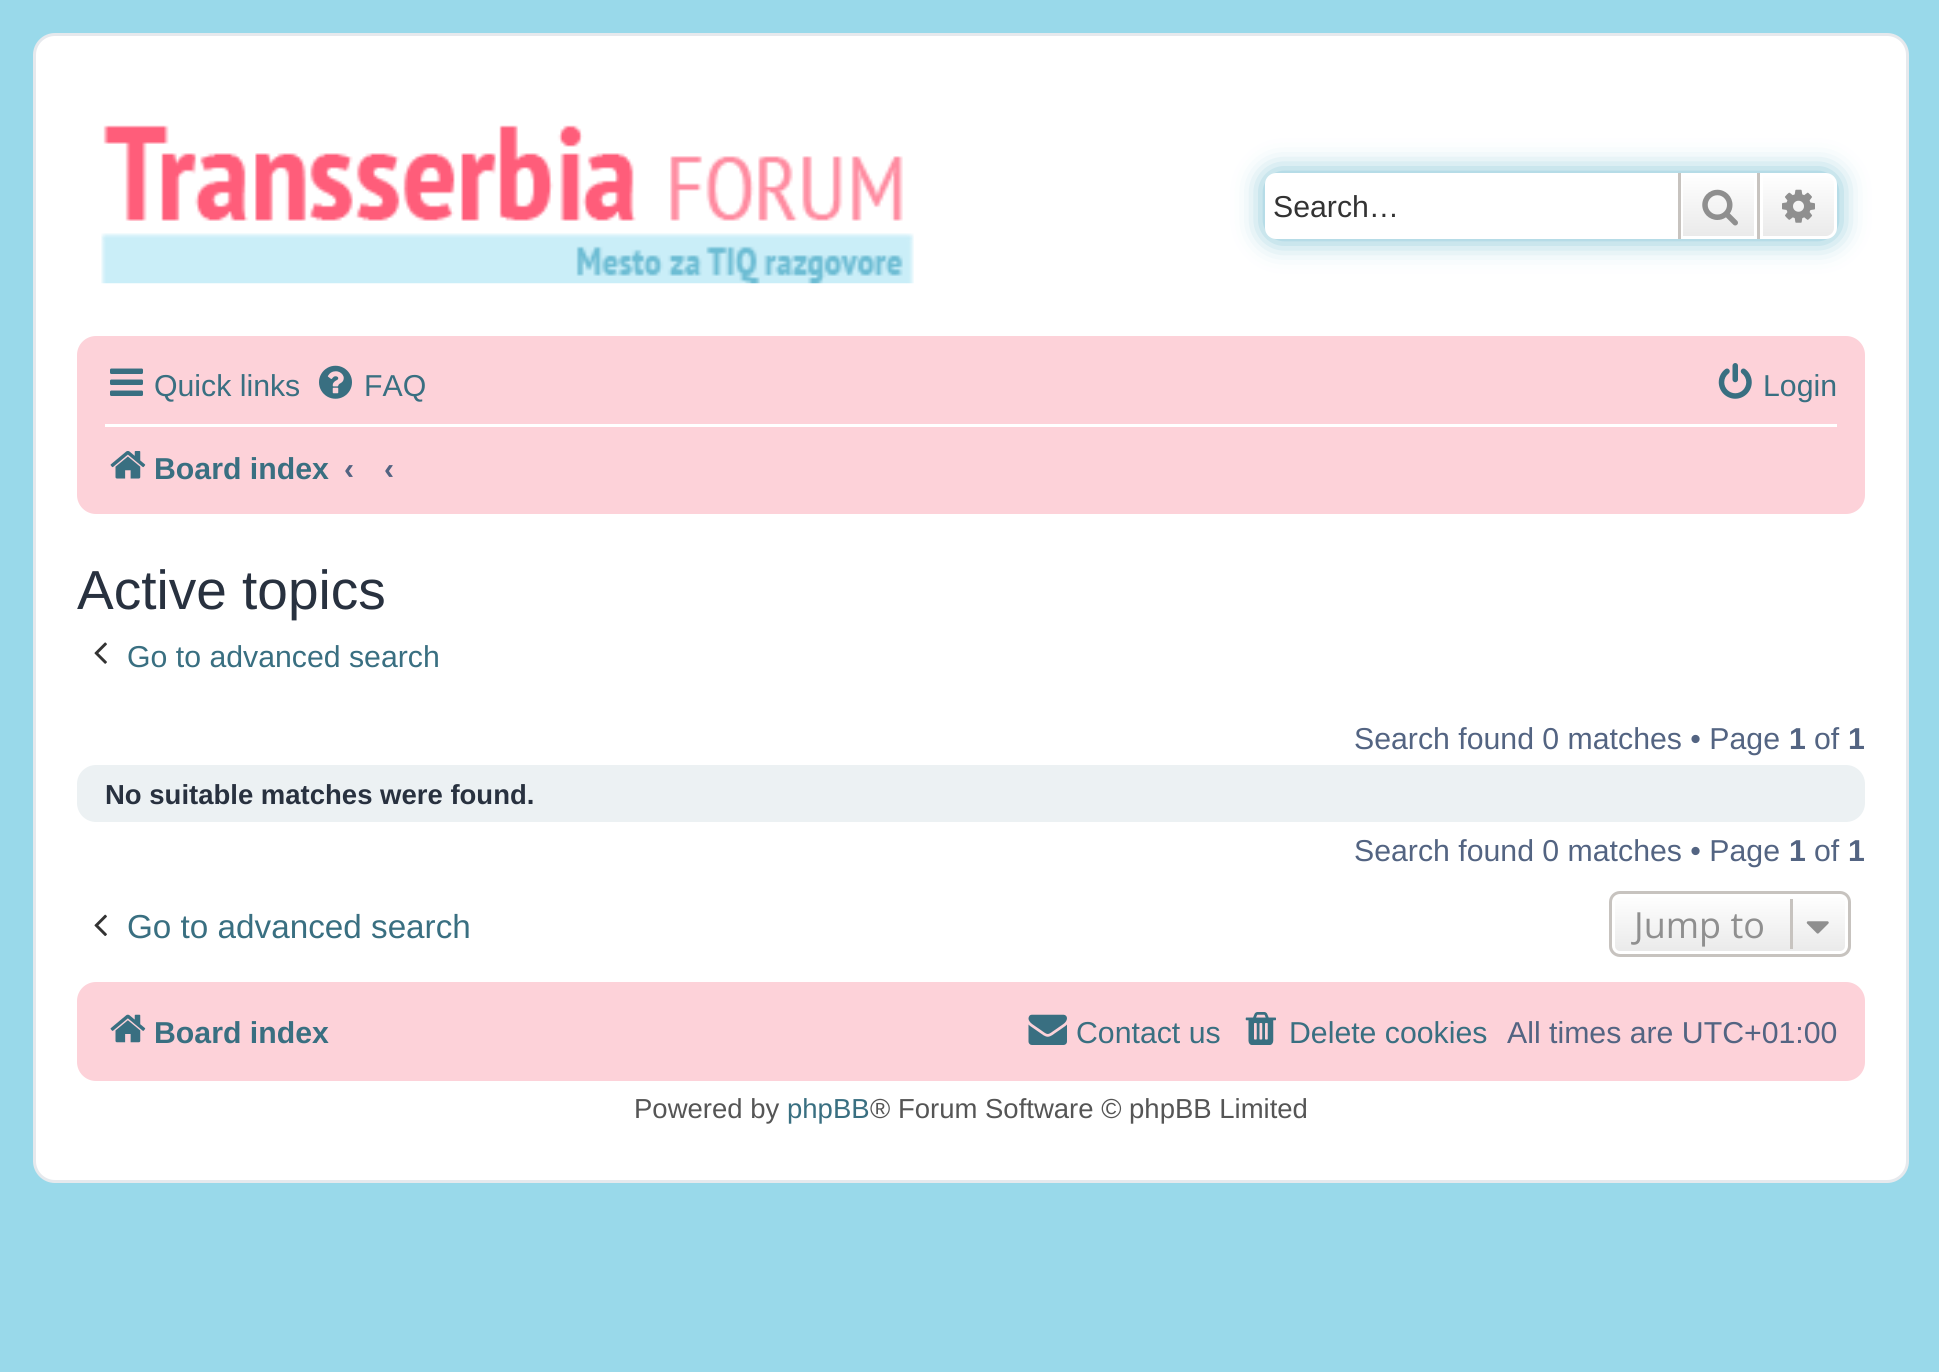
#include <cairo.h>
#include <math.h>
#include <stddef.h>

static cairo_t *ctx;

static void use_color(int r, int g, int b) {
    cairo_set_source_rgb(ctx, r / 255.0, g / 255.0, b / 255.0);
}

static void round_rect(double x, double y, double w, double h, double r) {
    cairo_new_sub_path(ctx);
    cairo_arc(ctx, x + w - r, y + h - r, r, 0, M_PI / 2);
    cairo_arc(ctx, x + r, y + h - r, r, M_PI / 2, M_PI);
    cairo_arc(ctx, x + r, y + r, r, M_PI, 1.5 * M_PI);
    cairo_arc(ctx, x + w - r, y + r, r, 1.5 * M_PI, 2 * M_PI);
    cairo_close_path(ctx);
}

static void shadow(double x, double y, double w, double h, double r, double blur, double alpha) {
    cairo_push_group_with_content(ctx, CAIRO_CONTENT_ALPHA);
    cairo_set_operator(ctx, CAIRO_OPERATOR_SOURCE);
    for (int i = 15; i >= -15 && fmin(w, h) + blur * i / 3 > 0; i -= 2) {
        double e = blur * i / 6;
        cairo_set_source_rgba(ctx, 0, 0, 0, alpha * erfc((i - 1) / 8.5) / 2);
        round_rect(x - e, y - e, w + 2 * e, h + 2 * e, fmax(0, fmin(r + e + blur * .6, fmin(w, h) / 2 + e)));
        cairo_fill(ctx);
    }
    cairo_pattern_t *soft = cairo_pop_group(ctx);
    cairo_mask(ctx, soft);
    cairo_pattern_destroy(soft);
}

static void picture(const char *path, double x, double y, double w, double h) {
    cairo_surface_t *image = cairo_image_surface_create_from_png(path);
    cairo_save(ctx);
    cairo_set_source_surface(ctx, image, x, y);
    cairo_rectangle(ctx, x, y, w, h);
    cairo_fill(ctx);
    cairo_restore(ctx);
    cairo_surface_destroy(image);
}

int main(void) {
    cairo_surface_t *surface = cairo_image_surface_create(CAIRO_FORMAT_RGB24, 1939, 1372);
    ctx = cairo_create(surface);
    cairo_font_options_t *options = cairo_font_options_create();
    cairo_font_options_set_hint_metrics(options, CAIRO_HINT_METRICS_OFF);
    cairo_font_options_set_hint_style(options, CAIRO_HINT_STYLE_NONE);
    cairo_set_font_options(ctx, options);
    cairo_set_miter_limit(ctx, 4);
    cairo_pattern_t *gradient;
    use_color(153, 217, 234);
    cairo_paint(ctx);
    use_color(255, 255, 255);
    round_rect(34.5, 34.5, 1873, 1147, 20.5);
    cairo_fill_preserve(ctx);
    use_color(230, 233, 237);
    cairo_set_line_width(ctx, 3);
    cairo_stroke(ctx);
    picture("img1.png", 101, 125, 813, 159);
    use_color(110, 186, 207);
    shadow(1265, 173, 572, 66, 11, 14, 1);
    use_color(255, 255, 255);
    cairo_new_path(ctx);
    cairo_move_to(ctx, 1276, 173);
    cairo_line_to(ctx, 1678, 173);
    cairo_line_to(ctx, 1678, 239);
    cairo_line_to(ctx, 1276, 239);
    cairo_curve_to(ctx, 1270, 239, 1265, 234, 1265, 228);
    cairo_line_to(ctx, 1265, 184);
    cairo_curve_to(ctx, 1265, 178, 1270, 173, 1276, 173);
    cairo_close_path(ctx);
    cairo_fill(ctx);
    cairo_select_font_face(ctx, "Liberation Sans", CAIRO_FONT_SLANT_NORMAL, CAIRO_FONT_WEIGHT_NORMAL);
    cairo_set_font_size(ctx, 30.25);
    use_color(51, 51, 51);
    cairo_move_to(ctx, 1273, 217);
    cairo_show_text(ctx, "Search…");
    gradient = cairo_pattern_create_linear(1719, 173, 1719, 239);
    cairo_pattern_add_color_stop_rgba(gradient, 0, 1, 1, 1, 1);
    cairo_pattern_add_color_stop_rgba(gradient, 1, 0.914, 0.914, 0.914, 1);
    cairo_set_source(ctx, gradient);
    cairo_pattern_destroy(gradient);
    cairo_rectangle(ctx, 1683, 176, 71, 60);
    cairo_fill(ctx);
    cairo_rectangle(ctx, 1681.5, 174.5, 74, 63);
    use_color(255, 255, 255);
    cairo_stroke(ctx);
    use_color(199, 195, 191);
    cairo_rectangle(ctx, 1757, 173, 3, 66);
    cairo_fill(ctx);
    cairo_rectangle(ctx, 1678, 173, 3, 66);
    cairo_fill(ctx);
    picture("img2.png", 1702, 189, 36, 37);
    gradient = cairo_pattern_create_linear(1799, 173, 1799, 239);
    cairo_pattern_add_color_stop_rgba(gradient, 0, 1, 1, 1, 1);
    cairo_pattern_add_color_stop_rgba(gradient, 1, 0.914, 0.914, 0.914, 1);
    cairo_set_source(ctx, gradient);
    cairo_pattern_destroy(gradient);
    cairo_new_path(ctx);
    cairo_move_to(ctx, 1761.5, 174.5);
    cairo_line_to(ctx, 1826, 174.5);
    cairo_curve_to(ctx, 1831, 174.5, 1835.5, 179, 1835.5, 184);
    cairo_line_to(ctx, 1835.5, 228);
    cairo_curve_to(ctx, 1835.5, 233, 1831, 237.5, 1826, 237.5);
    cairo_line_to(ctx, 1761.5, 237.5);
    cairo_close_path(ctx);
    cairo_fill_preserve(ctx);
    use_color(255, 255, 255);
    cairo_stroke(ctx);
    picture("img3.png", 1782, 189, 33, 34);
    use_color(253, 210, 217);
    round_rect(77, 336, 1788, 178, 19);
    cairo_fill(ctx);
    picture("img4.png", 110, 368, 33, 28);
    use_color(57, 111, 129);
    cairo_move_to(ctx, 154, 396);
    cairo_show_text(ctx, "Quick links");
    picture("img5.png", 319, 365, 33, 34);
    cairo_move_to(ctx, 364, 396);
    cairo_show_text(ctx, "FAQ");
    picture("img6.png", 1718, 363, 34, 36);
    cairo_move_to(ctx, 1763, 396);
    cairo_show_text(ctx, "Login");
    use_color(255, 255, 255);
    cairo_rectangle(ctx, 105, 424, 1732, 3);
    cairo_fill(ctx);
    picture("img7.png", 110, 451, 36, 28);
    cairo_select_font_face(ctx, "Liberation Sans", CAIRO_FONT_SLANT_NORMAL, CAIRO_FONT_WEIGHT_BOLD);
    use_color(57, 111, 129);
    cairo_move_to(ctx, 154, 479);
    cairo_show_text(ctx, "Board index");
    use_color(83, 100, 130);
    cairo_move_to(ctx, 344, 479);
    cairo_show_text(ctx, "‹");
    cairo_move_to(ctx, 384, 479);
    cairo_show_text(ctx, "‹");
    cairo_select_font_face(ctx, "Liberation Sans", CAIRO_FONT_SLANT_NORMAL, CAIRO_FONT_WEIGHT_NORMAL);
    cairo_set_font_size(ctx, 55);
    use_color(40, 49, 63);
    cairo_move_to(ctx, 77, 609);
    cairo_show_text(ctx, "Active topics");
    picture("img8.png", 94, 642, 13, 22);
    cairo_set_font_size(ctx, 30.25);
    use_color(57, 111, 129);
    cairo_move_to(ctx, 127, 667);
    cairo_show_text(ctx, "Go to advanced search");
    use_color(83, 100, 130);
    cairo_move_to(ctx, 1354, 749);
    cairo_show_text(ctx, "Search found 0 matches • Page");
    cairo_select_font_face(ctx, "Liberation Sans", CAIRO_FONT_SLANT_NORMAL, CAIRO_FONT_WEIGHT_BOLD);
    cairo_move_to(ctx, 1789, 749);
    cairo_show_text(ctx, "1");
    cairo_select_font_face(ctx, "Liberation Sans", CAIRO_FONT_SLANT_NORMAL, CAIRO_FONT_WEIGHT_NORMAL);
    cairo_move_to(ctx, 1814, 749);
    cairo_show_text(ctx, "of");
    cairo_select_font_face(ctx, "Liberation Sans", CAIRO_FONT_SLANT_NORMAL, CAIRO_FONT_WEIGHT_BOLD);
    cairo_move_to(ctx, 1848, 749);
    cairo_show_text(ctx, "1");
    use_color(236, 241, 243);
    round_rect(77, 765, 1788, 57, 19);
    cairo_fill(ctx);
    cairo_set_font_size(ctx, 27.5);
    use_color(40, 49, 63);
    cairo_move_to(ctx, 105, 804);
    cairo_show_text(ctx, "No suitable matches were found.");
    cairo_select_font_face(ctx, "Liberation Sans", CAIRO_FONT_SLANT_NORMAL, CAIRO_FONT_WEIGHT_NORMAL);
    cairo_set_font_size(ctx, 30.25);
    use_color(83, 100, 130);
    cairo_move_to(ctx, 1354, 861);
    cairo_show_text(ctx, "Search found 0 matches • Page");
    cairo_select_font_face(ctx, "Liberation Sans", CAIRO_FONT_SLANT_NORMAL, CAIRO_FONT_WEIGHT_BOLD);
    cairo_move_to(ctx, 1789, 861);
    cairo_show_text(ctx, "1");
    cairo_select_font_face(ctx, "Liberation Sans", CAIRO_FONT_SLANT_NORMAL, CAIRO_FONT_WEIGHT_NORMAL);
    cairo_move_to(ctx, 1814, 861);
    cairo_show_text(ctx, "of");
    cairo_select_font_face(ctx, "Liberation Sans", CAIRO_FONT_SLANT_NORMAL, CAIRO_FONT_WEIGHT_BOLD);
    cairo_move_to(ctx, 1848, 861);
    cairo_show_text(ctx, "1");
    picture("img9.png", 94, 914, 13, 22);
    cairo_select_font_face(ctx, "Liberation Sans", CAIRO_FONT_SLANT_NORMAL, CAIRO_FONT_WEIGHT_NORMAL);
    cairo_set_font_size(ctx, 33.25);
    use_color(57, 111, 129);
    cairo_move_to(ctx, 127, 938);
    cairo_show_text(ctx, "Go to advanced search");
    cairo_save(ctx);
    round_rect(1609, 891, 242, 66, 11);
    cairo_clip(ctx);
    gradient = cairo_pattern_create_linear(1730, 894, 1730, 954);
    cairo_pattern_add_color_stop_rgba(gradient, 0, 1, 1, 1, 1);
    cairo_pattern_add_color_stop_rgba(gradient, 1, 0.914, 0.914, 0.914, 1);
    cairo_set_source(ctx, gradient);
    cairo_pattern_destroy(gradient);
    cairo_rectangle(ctx, 1609, 894, 242, 60);
    cairo_fill(ctx);
    cairo_restore(ctx);
    round_rect(1613.5, 895.5, 233, 57, 6.5);
    use_color(255, 255, 255);
    cairo_stroke(ctx);
    round_rect(1610.5, 892.5, 239, 63, 9.5);
    use_color(199, 195, 191);
    cairo_stroke(ctx);
    cairo_select_font_face(ctx, "Open Sans", CAIRO_FONT_SLANT_NORMAL, CAIRO_FONT_WEIGHT_NORMAL);
    cairo_set_font_size(ctx, 36);
    use_color(143, 143, 143);
    cairo_move_to(ctx, 1634, 938);
    cairo_show_text(ctx, "Jump to");
    use_color(199, 195, 191);
    cairo_rectangle(ctx, 1790, 899, 3, 50);
    cairo_fill(ctx);
    picture("img10.png", 1806, 921, 23, 13);
    use_color(253, 210, 217);
    round_rect(77, 982, 1788, 99, 19);
    cairo_fill(ctx);
    picture("img11.png", 110, 1014, 36, 29);
    cairo_select_font_face(ctx, "Liberation Sans", CAIRO_FONT_SLANT_NORMAL, CAIRO_FONT_WEIGHT_BOLD);
    cairo_set_font_size(ctx, 30.25);
    use_color(57, 111, 129);
    cairo_move_to(ctx, 154, 1043);
    cairo_show_text(ctx, "Board index");
    picture("img12.png", 1028, 1014, 39, 31);
    cairo_select_font_face(ctx, "Liberation Sans", CAIRO_FONT_SLANT_NORMAL, CAIRO_FONT_WEIGHT_NORMAL);
    cairo_move_to(ctx, 1076, 1043);
    cairo_show_text(ctx, "Contact us");
    picture("img13.png", 1245, 1012, 31, 33);
    cairo_move_to(ctx, 1289, 1043);
    cairo_show_text(ctx, "Delete cookies");
    use_color(83, 100, 130);
    cairo_move_to(ctx, 1507, 1043);
    cairo_show_text(ctx, "All times are UTC+01:00");
    cairo_set_font_size(ctx, 27.5);
    use_color(85, 85, 85);
    cairo_move_to(ctx, 634, 1118);
    cairo_show_text(ctx, "Powered by");
    use_color(57, 111, 129);
    cairo_move_to(ctx, 787, 1118);
    cairo_show_text(ctx, "phpBB");
    use_color(85, 85, 85);
    cairo_move_to(ctx, 870, 1118);
    cairo_show_text(ctx, "® Forum Software © phpBB Limited");
    cairo_surface_write_to_png(surface, "result.png");
    cairo_font_options_destroy(options);
    cairo_destroy(ctx);
    cairo_surface_destroy(surface);
    return 0;
}
